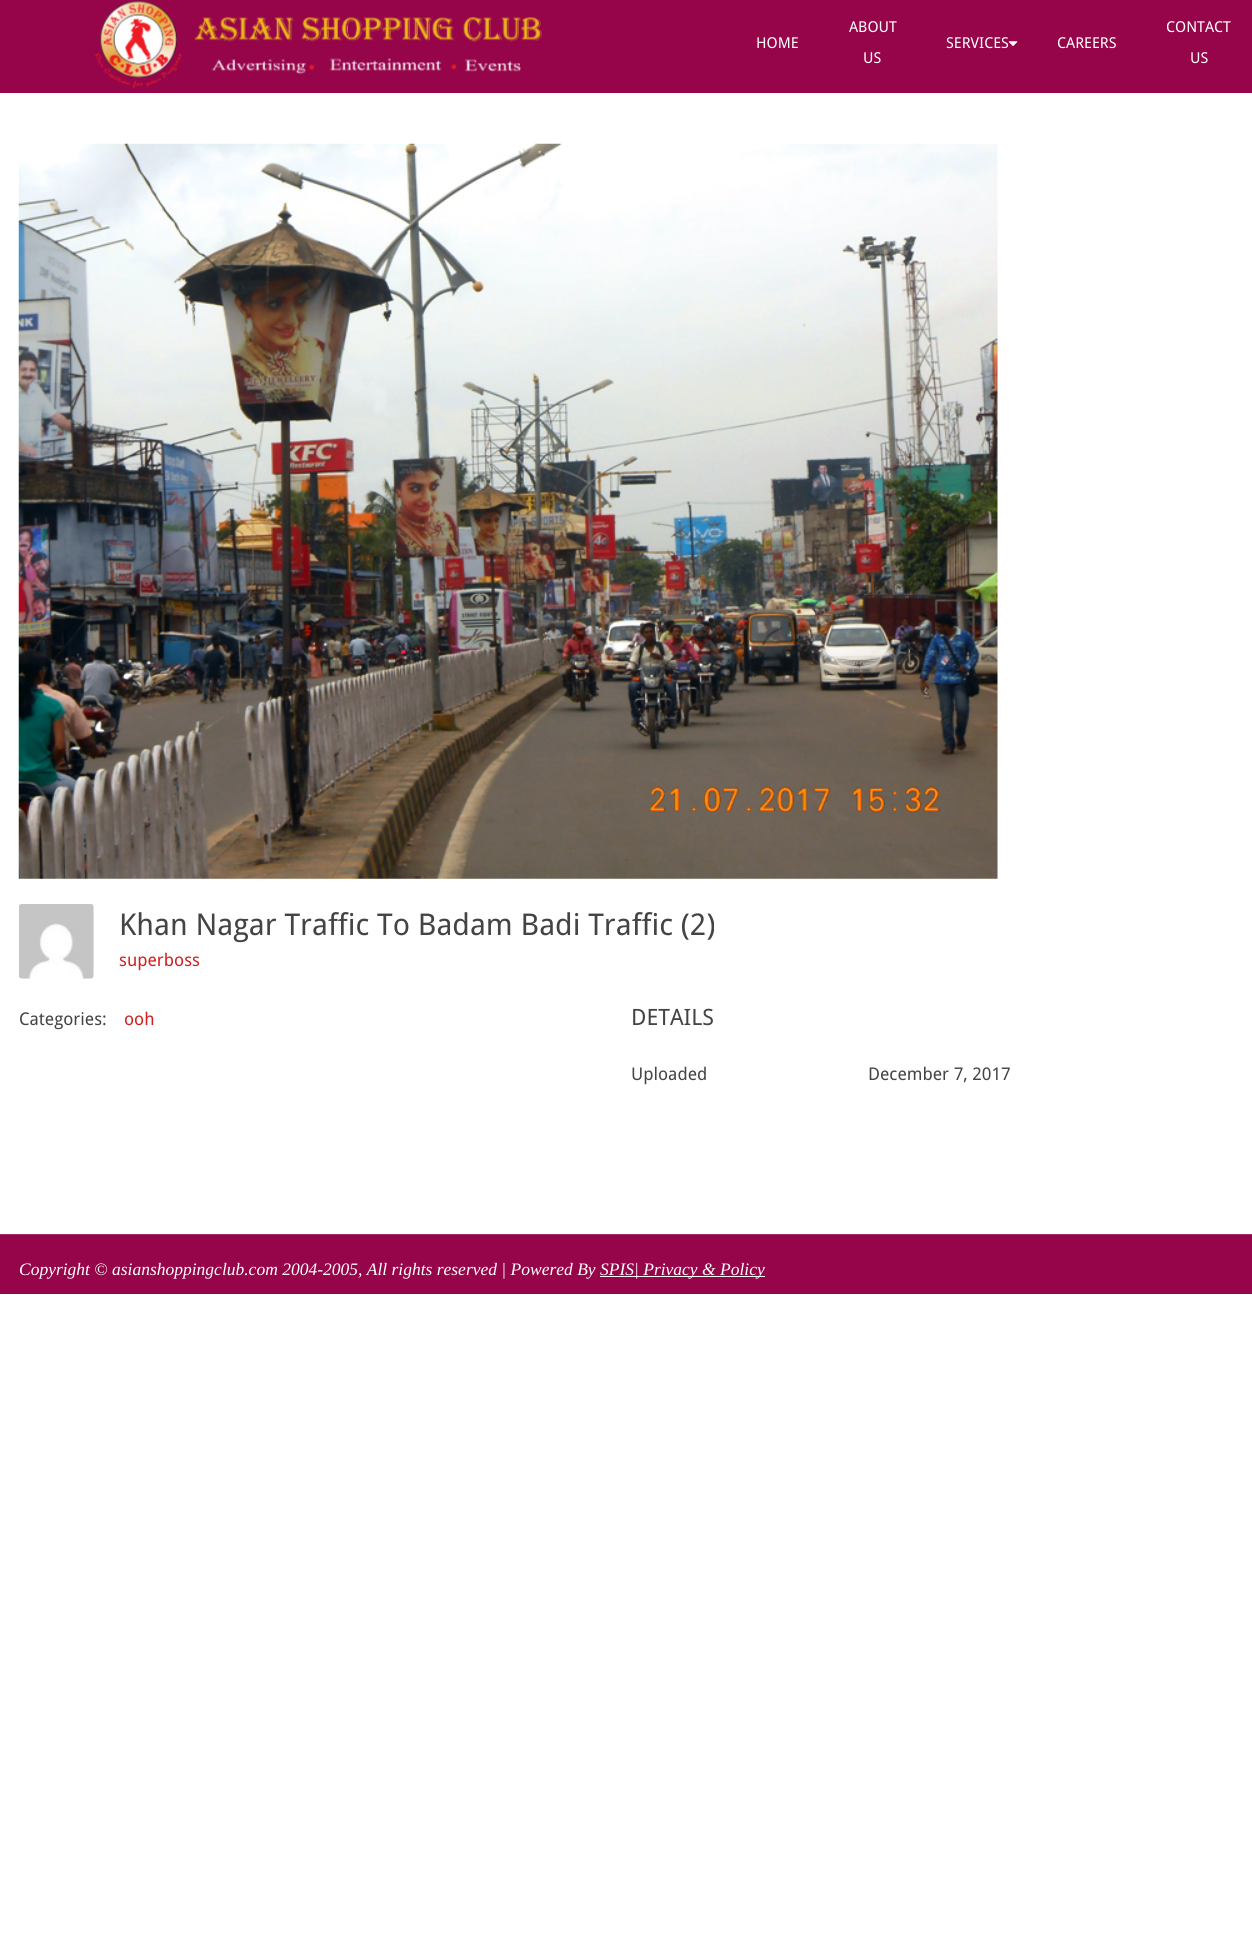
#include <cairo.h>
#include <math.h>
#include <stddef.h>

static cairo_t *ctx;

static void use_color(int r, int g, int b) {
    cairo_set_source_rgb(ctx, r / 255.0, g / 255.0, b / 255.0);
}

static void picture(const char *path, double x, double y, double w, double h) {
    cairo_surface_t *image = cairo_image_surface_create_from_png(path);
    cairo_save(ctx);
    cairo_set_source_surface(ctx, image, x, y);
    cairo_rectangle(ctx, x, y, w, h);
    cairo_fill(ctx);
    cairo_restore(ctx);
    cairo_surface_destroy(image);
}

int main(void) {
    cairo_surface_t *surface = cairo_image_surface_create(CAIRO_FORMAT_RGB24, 1252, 1936);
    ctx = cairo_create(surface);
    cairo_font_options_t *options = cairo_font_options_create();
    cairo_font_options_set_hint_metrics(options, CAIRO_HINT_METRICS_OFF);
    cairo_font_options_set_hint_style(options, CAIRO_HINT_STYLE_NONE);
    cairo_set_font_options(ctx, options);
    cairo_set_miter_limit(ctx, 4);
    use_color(255, 255, 255);
    cairo_paint(ctx);
    use_color(150, 5, 74);
    cairo_rectangle(ctx, 0, 0, 1252, 93);
    cairo_fill(ctx);
    picture("img1.png", 94, 0, 448, 89);
    cairo_select_font_face(ctx, "Droid Sans", CAIRO_FONT_SLANT_NORMAL, CAIRO_FONT_WEIGHT_NORMAL);
    cairo_set_font_size(ctx, 15);
    use_color(255, 255, 255);
    cairo_move_to(ctx, 756, 48);
    cairo_show_text(ctx, "HOME");
    cairo_move_to(ctx, 849, 32);
    cairo_show_text(ctx, "ABOUT");
    cairo_move_to(ctx, 863, 63);
    cairo_show_text(ctx, "US");
    cairo_move_to(ctx, 946, 48);
    cairo_show_text(ctx, "SERVICES");
    picture("img2.png", 1008, 41, 10, 5);
    cairo_move_to(ctx, 1057, 48);
    cairo_show_text(ctx, "CAREERS");
    cairo_move_to(ctx, 1166, 32);
    cairo_show_text(ctx, "CONTACT");
    cairo_move_to(ctx, 1190, 63);
    cairo_show_text(ctx, "US");
    picture("img3.png", 18, 143, 980, 736);
    picture("img4.png", 19, 904, 75, 75);
    cairo_set_font_size(ctx, 30);
    use_color(68, 68, 68);
    cairo_move_to(ctx, 119, 935);
    cairo_show_text(ctx, "Khan Nagar Traffic To Badam Badi Traffic (2)");
    cairo_set_font_size(ctx, 17.5);
    use_color(208, 33, 33);
    cairo_move_to(ctx, 119, 966);
    cairo_show_text(ctx, "superboss");
    use_color(68, 68, 68);
    cairo_move_to(ctx, 19, 1025);
    cairo_show_text(ctx, "Categories:");
    use_color(208, 33, 33);
    cairo_move_to(ctx, 124, 1025);
    cairo_show_text(ctx, "ooh");
    cairo_set_font_size(ctx, 22.5);
    use_color(68, 68, 68);
    cairo_move_to(ctx, 631, 1025);
    cairo_show_text(ctx, "DETAILS");
    cairo_set_font_size(ctx, 17.5);
    cairo_move_to(ctx, 631, 1080);
    cairo_show_text(ctx, "Uploaded");
    cairo_move_to(ctx, 868, 1080);
    cairo_show_text(ctx, "December 7, 2017");
    use_color(150, 5, 74);
    cairo_rectangle(ctx, 0, 1235, 1252, 59);
    cairo_fill(ctx);
    use_color(166, 43, 101);
    cairo_rectangle(ctx, 0, 1234, 1252, 1);
    cairo_fill(ctx);
    cairo_select_font_face(ctx, "Liberation Serif", CAIRO_FONT_SLANT_ITALIC, CAIRO_FONT_WEIGHT_NORMAL);
    use_color(255, 255, 255);
    cairo_move_to(ctx, 19, 1275);
    cairo_show_text(ctx, "Copyright © asianshoppingclub.com 2004-2005, All rights reserved | Powered By SPIS");
    cairo_rectangle(ctx, 600, 1276, 165, 1);
    cairo_fill(ctx);
    cairo_move_to(ctx, 634, 1275);
    cairo_show_text(ctx, "| Privacy & Policy");
    cairo_surface_write_to_png(surface, "result.png");
    cairo_font_options_destroy(options);
    cairo_destroy(ctx);
    cairo_surface_destroy(surface);
    return 0;
}
